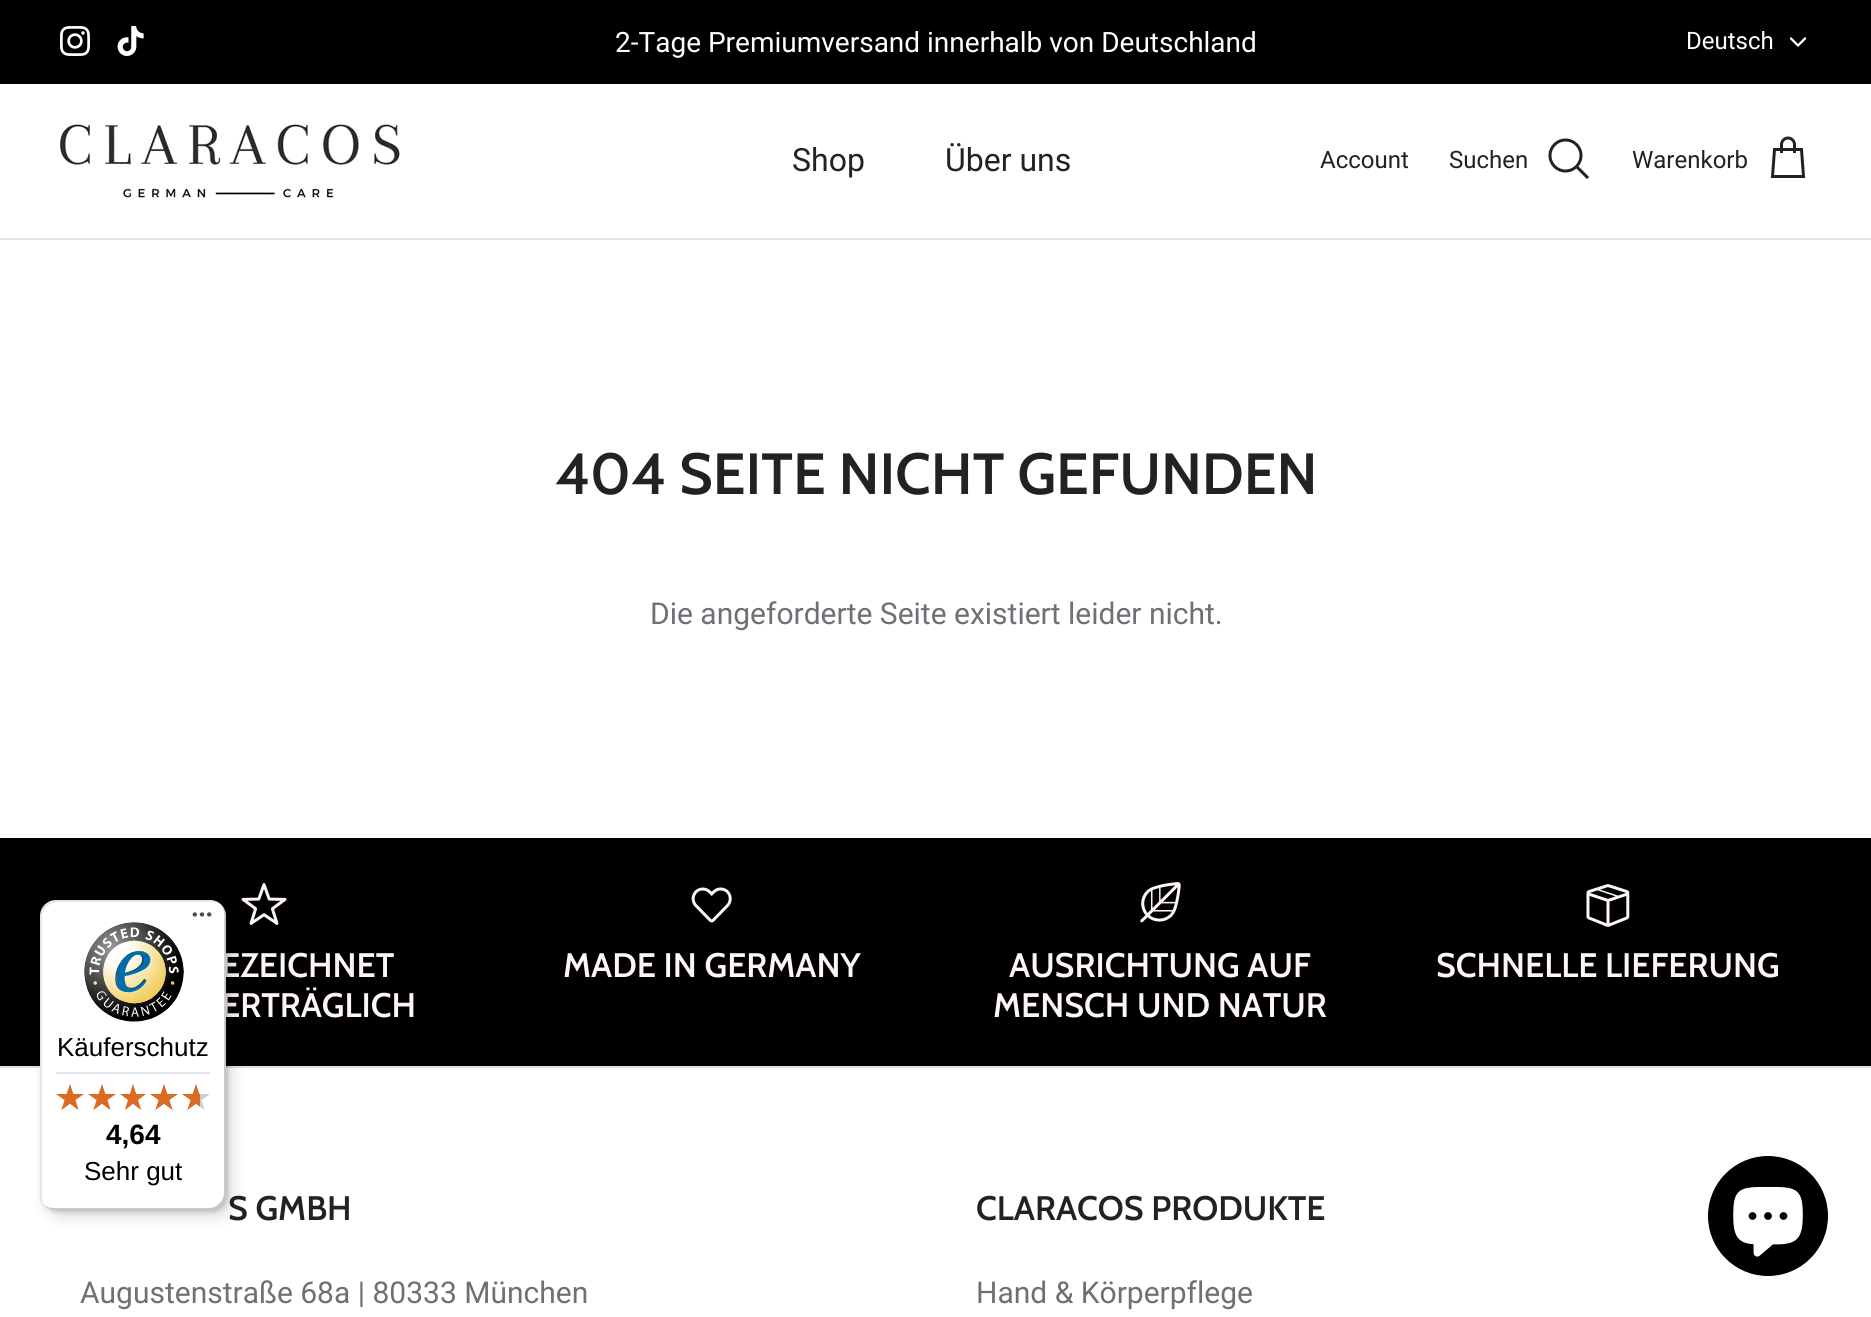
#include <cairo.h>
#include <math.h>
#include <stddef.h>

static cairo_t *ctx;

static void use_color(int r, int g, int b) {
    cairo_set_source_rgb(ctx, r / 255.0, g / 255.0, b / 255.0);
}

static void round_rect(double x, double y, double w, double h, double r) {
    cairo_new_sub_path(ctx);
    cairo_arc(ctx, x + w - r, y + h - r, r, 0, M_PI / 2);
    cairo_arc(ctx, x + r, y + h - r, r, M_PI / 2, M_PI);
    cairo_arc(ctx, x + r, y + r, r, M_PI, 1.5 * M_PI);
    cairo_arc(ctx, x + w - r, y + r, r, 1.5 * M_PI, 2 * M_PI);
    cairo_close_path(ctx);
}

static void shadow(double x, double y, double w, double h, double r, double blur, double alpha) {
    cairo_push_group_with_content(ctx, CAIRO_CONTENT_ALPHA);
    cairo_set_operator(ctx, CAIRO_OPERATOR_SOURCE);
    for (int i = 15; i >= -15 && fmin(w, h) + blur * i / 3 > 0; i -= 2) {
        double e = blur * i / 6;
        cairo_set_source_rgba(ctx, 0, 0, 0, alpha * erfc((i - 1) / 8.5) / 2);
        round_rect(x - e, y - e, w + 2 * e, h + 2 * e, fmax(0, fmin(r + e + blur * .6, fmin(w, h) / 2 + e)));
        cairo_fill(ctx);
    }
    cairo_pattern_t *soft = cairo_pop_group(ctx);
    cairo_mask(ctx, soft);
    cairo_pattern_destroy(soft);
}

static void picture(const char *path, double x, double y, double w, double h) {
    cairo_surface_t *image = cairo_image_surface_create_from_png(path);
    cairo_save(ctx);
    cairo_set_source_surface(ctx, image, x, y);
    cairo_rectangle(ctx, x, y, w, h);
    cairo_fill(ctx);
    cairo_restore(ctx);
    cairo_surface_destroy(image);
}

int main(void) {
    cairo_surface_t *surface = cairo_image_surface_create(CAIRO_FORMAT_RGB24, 1871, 1317);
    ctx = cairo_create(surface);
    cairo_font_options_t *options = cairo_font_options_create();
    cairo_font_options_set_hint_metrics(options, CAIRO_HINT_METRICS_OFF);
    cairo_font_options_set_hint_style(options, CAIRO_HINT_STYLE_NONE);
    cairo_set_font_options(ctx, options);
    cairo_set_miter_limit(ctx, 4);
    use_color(255, 255, 255);
    cairo_paint(ctx);
    use_color(0, 0, 0);
    cairo_rectangle(ctx, 0, 0, 1871, 84);
    cairo_fill(ctx);
    picture("img1.png", 60, 26, 30, 30);
    picture("img2.png", 117, 26, 27, 30);
    cairo_select_font_face(ctx, "Roboto", CAIRO_FONT_SLANT_NORMAL, CAIRO_FONT_WEIGHT_NORMAL);
    cairo_set_font_size(ctx, 28);
    use_color(255, 255, 255);
    cairo_move_to(ctx, 615, 52);
    cairo_show_text(ctx, "2-Tage Premiumversand innerhalb von Deutschland");
    cairo_set_font_size(ctx, 24);
    cairo_move_to(ctx, 1686, 49);
    cairo_show_text(ctx, "Deutsch");
    cairo_new_path(ctx);
    cairo_move_to(ctx, 1791, 38.5);
    cairo_line_to(ctx, 1798, 45.5);
    cairo_line_to(ctx, 1805, 38.5);
    cairo_set_line_width(ctx, 2.3);
    cairo_set_line_cap(ctx, CAIRO_LINE_CAP_ROUND);
    cairo_set_line_join(ctx, CAIRO_LINE_JOIN_ROUND);
    cairo_stroke(ctx);
    use_color(226, 226, 226);
    cairo_rectangle(ctx, 0, 238, 1871, 2);
    cairo_fill(ctx);
    picture("img3.png", 60, 124, 340, 74);
    cairo_set_font_size(ctx, 32);
    use_color(32, 34, 35);
    cairo_move_to(ctx, 792, 171);
    cairo_show_text(ctx, "Shop");
    cairo_move_to(ctx, 945, 171);
    cairo_show_text(ctx, "Über uns");
    cairo_set_font_size(ctx, 24);
    cairo_move_to(ctx, 1320, 168);
    cairo_show_text(ctx, "Account");
    cairo_move_to(ctx, 1449, 168);
    cairo_show_text(ctx, "Suchen");
    cairo_new_path(ctx);
    cairo_arc(ctx, 1565.5, 155.5, 15.5, 0, 2 * M_PI);
    cairo_set_line_width(ctx, 3);
    cairo_set_line_cap(ctx, CAIRO_LINE_CAP_BUTT);
    cairo_set_line_join(ctx, CAIRO_LINE_JOIN_MITER);
    cairo_stroke(ctx);
    cairo_new_path(ctx);
    cairo_move_to(ctx, 1578, 168);
    cairo_line_to(ctx, 1587, 177);
    cairo_set_line_cap(ctx, CAIRO_LINE_CAP_SQUARE);
    cairo_stroke(ctx);
    cairo_move_to(ctx, 1632, 168);
    cairo_show_text(ctx, "Warenkorb");
    cairo_new_path(ctx);
    cairo_move_to(ctx, 1794.5, 153);
    cairo_line_to(ctx, 1794.5, 144.5);
    cairo_curve_to(ctx, 1794.5, 141, 1791.5, 138, 1788, 138);
    cairo_curve_to(ctx, 1784.5, 138, 1781.5, 141, 1781.5, 144.5);
    cairo_line_to(ctx, 1781.5, 153);
    cairo_move_to(ctx, 1774.5, 149.5);
    cairo_line_to(ctx, 1801.5, 149.5);
    cairo_line_to(ctx, 1803.5, 176.5);
    cairo_line_to(ctx, 1772.5, 176.5);
    cairo_close_path(ctx);
    cairo_set_line_cap(ctx, CAIRO_LINE_CAP_BUTT);
    cairo_stroke(ctx);
    cairo_select_font_face(ctx, "Cabin SemiBold", CAIRO_FONT_SLANT_NORMAL, CAIRO_FONT_WEIGHT_NORMAL);
    cairo_set_font_size(ctx, 58);
    cairo_move_to(ctx, 555, 494);
    cairo_show_text(ctx, "404 SEITE NICHT GEFUNDEN");
    cairo_select_font_face(ctx, "Roboto", CAIRO_FONT_SLANT_NORMAL, CAIRO_FONT_WEIGHT_NORMAL);
    cairo_set_font_size(ctx, 30);
    use_color(109, 113, 117);
    cairo_move_to(ctx, 650, 624);
    cairo_show_text(ctx, "Die angeforderte Seite existiert leider nicht.");
    use_color(0, 0, 0);
    cairo_rectangle(ctx, 0, 838, 1871, 228);
    cairo_fill(ctx);
    picture("img4.png", 241, 883, 46, 42);
    cairo_select_font_face(ctx, "Cabin SemiBold", CAIRO_FONT_SLANT_NORMAL, CAIRO_FONT_WEIGHT_NORMAL);
    cairo_set_font_size(ctx, 34);
    use_color(254, 246, 246);
    cairo_move_to(ctx, 221, 977);
    cairo_show_text(ctx, "EZEICHNET");
    cairo_move_to(ctx, 221, 1017);
    cairo_show_text(ctx, "ERTRÄGLICH");
    picture("img5.png", 691, 887, 41, 36);
    cairo_move_to(ctx, 563, 977);
    cairo_show_text(ctx, "MADE IN GERMANY");
    picture("img6.png", 1140, 882, 41, 41);
    cairo_move_to(ctx, 1009, 977);
    cairo_show_text(ctx, "AUSRICHTUNG AUF");
    cairo_move_to(ctx, 993, 1017);
    cairo_show_text(ctx, "MENSCH UND NATUR");
    picture("img7.png", 1586, 884, 44, 43);
    cairo_move_to(ctx, 1436, 977);
    cairo_show_text(ctx, "SCHNELLE LIEFERUNG");
    use_color(224, 224, 224);
    cairo_rectangle(ctx, 0, 1066, 1871, 2);
    cairo_fill(ctx);
    use_color(32, 34, 35);
    cairo_move_to(ctx, 228, 1220);
    cairo_show_text(ctx, "S GMBH");
    cairo_select_font_face(ctx, "Roboto", CAIRO_FONT_SLANT_NORMAL, CAIRO_FONT_WEIGHT_NORMAL);
    cairo_set_font_size(ctx, 30);
    use_color(109, 113, 117);
    cairo_move_to(ctx, 80, 1303);
    cairo_show_text(ctx, "Augustenstraße 68a | 80333 München");
    cairo_select_font_face(ctx, "Cabin SemiBold", CAIRO_FONT_SLANT_NORMAL, CAIRO_FONT_WEIGHT_NORMAL);
    cairo_set_font_size(ctx, 34);
    use_color(32, 34, 35);
    cairo_move_to(ctx, 976, 1220);
    cairo_show_text(ctx, "CLARACOS PRODUKTE");
    cairo_select_font_face(ctx, "Roboto", CAIRO_FONT_SLANT_NORMAL, CAIRO_FONT_WEIGHT_NORMAL);
    cairo_set_font_size(ctx, 30);
    use_color(109, 113, 117);
    cairo_move_to(ctx, 976, 1303);
    cairo_show_text(ctx, "Hand & Körperpflege");
    use_color(0, 0, 0);
    shadow(46, 906, 186, 310, 16, 8, 0.15);
    shadow(42, 902, 186, 310, 16, 2, 0.15);
    use_color(255, 255, 255);
    round_rect(40, 900, 186, 310, 16);
    cairo_fill(ctx);
    cairo_set_source_rgba(ctx, 0, 0, 0, 0.1);
    cairo_new_path(ctx);
    cairo_move_to(ctx, 58, 902);
    cairo_line_to(ctx, 212, 902);
    cairo_curve_to(ctx, 216, 902, 219, 903, 222, 905);
    cairo_curve_to(ctx, 219, 902, 215, 900, 210, 900);
    cairo_line_to(ctx, 56, 900);
    cairo_curve_to(ctx, 47, 900, 40, 907, 40, 916);
    cairo_line_to(ctx, 40, 1194);
    cairo_curve_to(ctx, 40, 1199, 42, 1203, 45, 1206);
    cairo_curve_to(ctx, 43, 1203, 42, 1200, 42, 1196);
    cairo_line_to(ctx, 42, 918);
    cairo_curve_to(ctx, 42, 909, 49, 902, 58, 902);
    cairo_close_path(ctx);
    cairo_fill(ctx);
    cairo_set_source_rgba(ctx, 0, 0, 0, 0.2);
    cairo_new_path(ctx);
    cairo_move_to(ctx, 44, 1205);
    cairo_curve_to(ctx, 47, 1208, 51, 1210, 56, 1210);
    cairo_line_to(ctx, 210, 1210);
    cairo_curve_to(ctx, 219, 1210, 226, 1203, 226, 1194);
    cairo_line_to(ctx, 226, 916);
    cairo_curve_to(ctx, 226, 911, 224, 907, 221, 904);
    cairo_curve_to(ctx, 223, 907, 224, 910, 224, 914);
    cairo_line_to(ctx, 224, 1192);
    cairo_curve_to(ctx, 224, 1201, 217, 1208, 208, 1208);
    cairo_line_to(ctx, 54, 1208);
    cairo_curve_to(ctx, 50, 1208, 47, 1207, 44, 1205);
    cairo_close_path(ctx);
    cairo_fill(ctx);
    cairo_set_source_rgba(ctx, 0.196, 0.196, 0.196, 0.2);
    cairo_new_path(ctx);
    cairo_move_to(ctx, 45, 1205);
    cairo_curve_to(ctx, 48, 1208, 52, 1210, 56, 1210);
    cairo_line_to(ctx, 210, 1210);
    cairo_curve_to(ctx, 219, 1210, 226, 1203, 226, 1194);
    cairo_line_to(ctx, 226, 916);
    cairo_curve_to(ctx, 226, 912, 224, 908, 221, 905);
    cairo_curve_to(ctx, 224, 908, 225, 911, 225, 915);
    cairo_line_to(ctx, 225, 1193);
    cairo_curve_to(ctx, 225, 1202, 218, 1209, 209, 1209);
    cairo_line_to(ctx, 55, 1209);
    cairo_curve_to(ctx, 51, 1209, 48, 1208, 45, 1205);
    cairo_close_path(ctx);
    cairo_fill(ctx);
    cairo_set_source_rgba(ctx, 1, 1, 1, 0.3);
    cairo_new_path(ctx);
    cairo_move_to(ctx, 45, 1205);
    cairo_curve_to(ctx, 48, 1208, 52, 1210, 56, 1210);
    cairo_line_to(ctx, 210, 1210);
    cairo_curve_to(ctx, 219, 1210, 226, 1203, 226, 1194);
    cairo_line_to(ctx, 226, 916);
    cairo_curve_to(ctx, 226, 912, 224, 908, 221, 905);
    cairo_curve_to(ctx, 224, 908, 225, 911, 225, 915);
    cairo_line_to(ctx, 225, 1193);
    cairo_curve_to(ctx, 225, 1202, 218, 1209, 209, 1209);
    cairo_line_to(ctx, 55, 1209);
    cairo_curve_to(ctx, 51, 1209, 48, 1208, 45, 1205);
    cairo_close_path(ctx);
    cairo_fill(ctx);
    picture("img8.png", 192, 912, 20, 5);
    picture("img9.png", 84, 922, 100, 100);
    cairo_select_font_face(ctx, "Liberation Sans", CAIRO_FONT_SLANT_NORMAL, CAIRO_FONT_WEIGHT_NORMAL);
    cairo_set_font_size(ctx, 26);
    use_color(0, 0, 0);
    cairo_move_to(ctx, 57, 1056);
    cairo_show_text(ctx, "Käuferschutz");
    use_color(229, 229, 229);
    cairo_rectangle(ctx, 56, 1072, 154, 2);
    cairo_fill(ctx);
    picture("img10.png", 56, 1084, 28, 26);
    picture("img10.png", 88, 1084, 28, 26);
    picture("img11.png", 120, 1084, 26, 26);
    picture("img10.png", 150, 1084, 28, 26);
    picture("img10.png", 182, 1084, 28, 26);
    picture("img12.png", 56, 1084, 28, 26);
    picture("img12.png", 88, 1084, 28, 26);
    picture("img13.png", 120, 1084, 26, 26);
    picture("img12.png", 150, 1084, 28, 26);
    picture("img14.png", 182, 1084, 18, 26);
    cairo_select_font_face(ctx, "Liberation Sans", CAIRO_FONT_SLANT_NORMAL, CAIRO_FONT_WEIGHT_BOLD);
    cairo_set_font_size(ctx, 28);
    use_color(0, 0, 0);
    cairo_move_to(ctx, 106, 1144);
    cairo_show_text(ctx, "4,64");
    cairo_select_font_face(ctx, "Liberation Sans", CAIRO_FONT_SLANT_NORMAL, CAIRO_FONT_WEIGHT_NORMAL);
    cairo_set_font_size(ctx, 26);
    cairo_move_to(ctx, 84, 1180);
    cairo_show_text(ctx, "Sehr gut");
    cairo_new_path(ctx);
    cairo_arc(ctx, 1768, 1216, 60, 0, 2 * M_PI);
    cairo_fill(ctx);
    picture("img15.png", 1733, 1187, 70, 70);
    cairo_surface_write_to_png(surface, "result.png");
    cairo_font_options_destroy(options);
    cairo_destroy(ctx);
    cairo_surface_destroy(surface);
    return 0;
}
